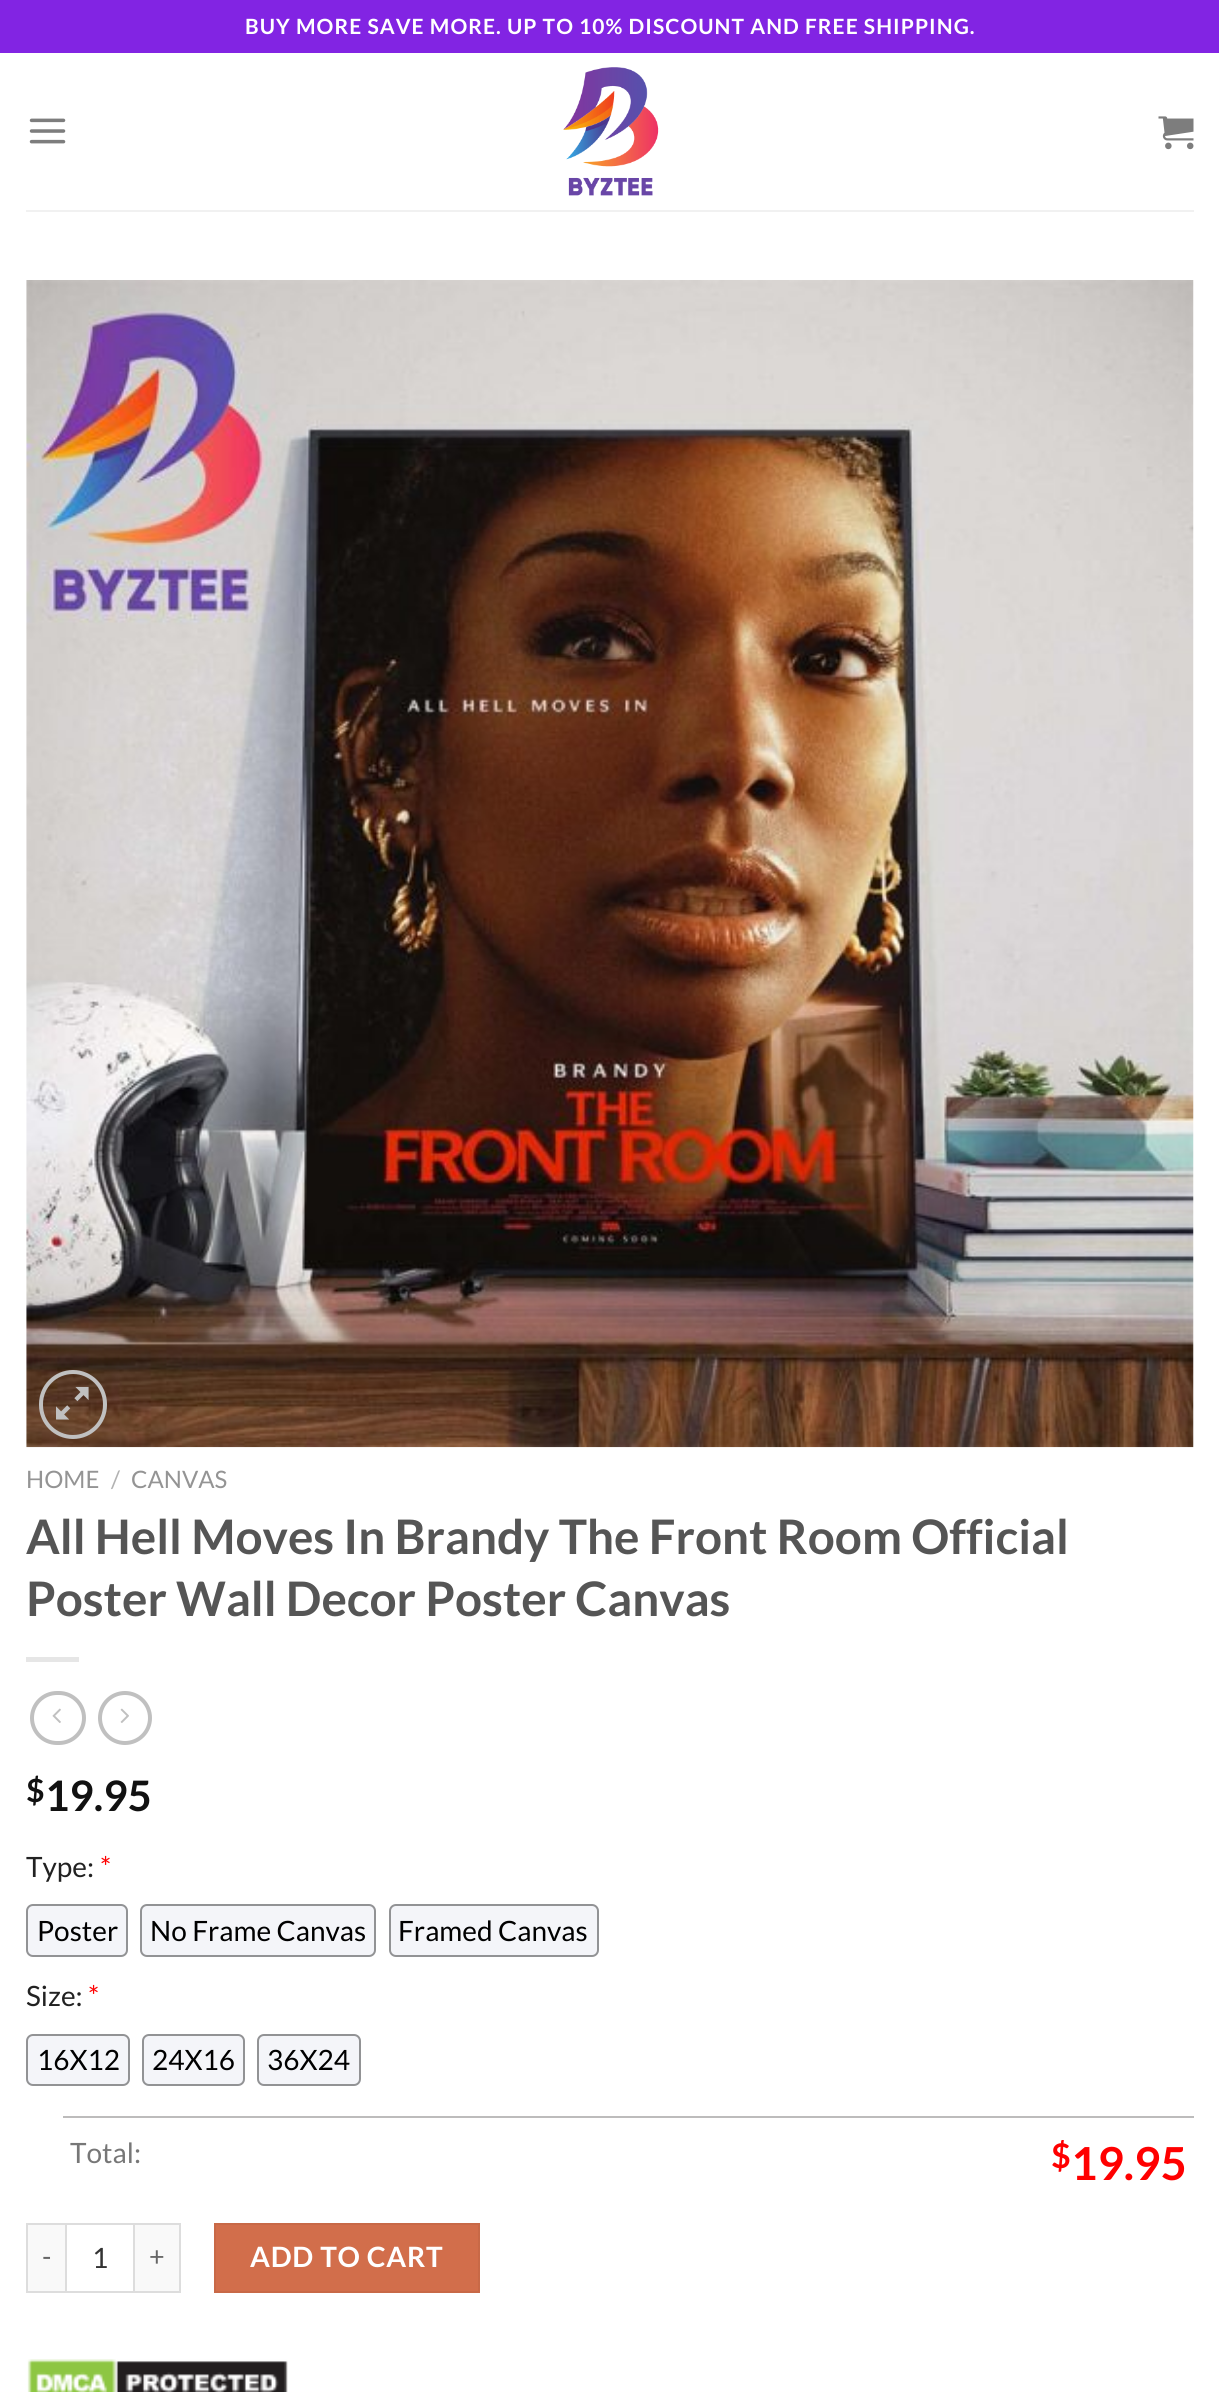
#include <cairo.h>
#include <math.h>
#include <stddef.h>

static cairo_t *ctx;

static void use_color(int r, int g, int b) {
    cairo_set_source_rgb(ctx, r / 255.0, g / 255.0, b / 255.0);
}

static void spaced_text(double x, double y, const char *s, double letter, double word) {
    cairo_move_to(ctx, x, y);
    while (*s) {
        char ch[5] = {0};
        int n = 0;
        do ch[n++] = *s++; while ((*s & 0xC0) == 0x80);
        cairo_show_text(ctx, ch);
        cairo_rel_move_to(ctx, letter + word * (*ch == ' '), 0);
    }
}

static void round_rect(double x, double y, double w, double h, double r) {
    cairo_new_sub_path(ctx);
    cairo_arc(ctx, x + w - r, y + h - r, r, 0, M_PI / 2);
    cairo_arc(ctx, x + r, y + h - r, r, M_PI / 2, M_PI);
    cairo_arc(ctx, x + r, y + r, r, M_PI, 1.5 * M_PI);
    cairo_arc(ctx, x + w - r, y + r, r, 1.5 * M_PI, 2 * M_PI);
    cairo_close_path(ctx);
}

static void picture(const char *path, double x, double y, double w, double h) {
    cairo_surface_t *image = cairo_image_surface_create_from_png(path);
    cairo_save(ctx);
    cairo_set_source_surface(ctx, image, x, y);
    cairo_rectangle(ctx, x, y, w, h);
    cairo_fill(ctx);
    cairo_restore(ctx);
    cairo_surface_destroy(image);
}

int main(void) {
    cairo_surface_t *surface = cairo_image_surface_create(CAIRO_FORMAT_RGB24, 1219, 2392);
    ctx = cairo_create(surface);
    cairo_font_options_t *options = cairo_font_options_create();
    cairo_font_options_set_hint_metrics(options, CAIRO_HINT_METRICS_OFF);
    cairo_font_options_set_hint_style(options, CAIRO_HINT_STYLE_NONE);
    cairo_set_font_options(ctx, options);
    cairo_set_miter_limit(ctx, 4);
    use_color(255, 255, 255);
    cairo_paint(ctx);
    use_color(130, 36, 227);
    cairo_rectangle(ctx, 0, 0, 1219, 53);
    cairo_fill(ctx);
    cairo_select_font_face(ctx, "Lato", CAIRO_FONT_SLANT_NORMAL, CAIRO_FONT_WEIGHT_BOLD);
    cairo_set_font_size(ctx, 21);
    use_color(255, 255, 255);
    spaced_text(245, 34, "BUY MORE SAVE MORE. UP TO 10% DISCOUNT AND FREE SHIPPING.", 1.05, 0);
    picture("img1.png", 29, 118, 37, 26);
    picture("img2.png", 563, 67, 96, 129);
    picture("img3.png", 1158, 116, 36, 34);
    use_color(241, 241, 241);
    cairo_rectangle(ctx, 26, 210, 1168, 2);
    cairo_fill(ctx);
    picture("img4.png", 26, 280, 1168, 1168);
    round_rect(41, 1372, 64, 65, 32);
    use_color(192, 192, 192);
    cairo_set_line_width(ctx, 4);
    cairo_stroke(ctx);
    picture("img5.png", 56, 1386, 33, 34);
    cairo_select_font_face(ctx, "Lato", CAIRO_FONT_SLANT_NORMAL, CAIRO_FONT_WEIGHT_NORMAL);
    cairo_set_font_size(ctx, 24);
    use_color(148, 148, 148);
    cairo_move_to(ctx, 26, 1488);
    cairo_show_text(ctx, "HOME");
    use_color(178, 178, 178);
    cairo_move_to(ctx, 111, 1488);
    cairo_show_text(ctx, "/");
    use_color(148, 148, 148);
    cairo_move_to(ctx, 131, 1488);
    cairo_show_text(ctx, "CANVAS");
    cairo_select_font_face(ctx, "Lato", CAIRO_FONT_SLANT_NORMAL, CAIRO_FONT_WEIGHT_BOLD);
    cairo_set_font_size(ctx, 47.6);
    use_color(85, 85, 85);
    cairo_move_to(ctx, 26, 1554);
    cairo_show_text(ctx, "All Hell Moves In Brandy The Front Room Official");
    cairo_move_to(ctx, 26, 1616);
    cairo_show_text(ctx, "Poster Wall Decor Poster Canvas");
    use_color(230, 230, 230);
    cairo_rectangle(ctx, 26, 1657, 53, 5);
    cairo_fill(ctx);
    round_rect(32, 1693, 52, 50, 25);
    use_color(192, 192, 192);
    cairo_stroke(ctx);
    picture("img6.png", 52, 1708, 9, 15);
    cairo_arc(ctx, 125, 1718, 25, 0, 2 * M_PI);
    cairo_stroke(ctx);
    picture("img7.png", 120, 1708, 9, 15);
    cairo_set_font_size(ctx, 32);
    use_color(17, 17, 17);
    cairo_move_to(ctx, 26, 1802);
    cairo_show_text(ctx, "$");
    cairo_set_font_size(ctx, 42);
    cairo_move_to(ctx, 45, 1811);
    cairo_show_text(ctx, "19.95");
    cairo_select_font_face(ctx, "Lato", CAIRO_FONT_SLANT_NORMAL, CAIRO_FONT_WEIGHT_NORMAL);
    cairo_set_font_size(ctx, 28);
    use_color(34, 34, 34);
    cairo_move_to(ctx, 26, 1877);
    cairo_show_text(ctx, "Type:");
    use_color(255, 0, 0);
    cairo_move_to(ctx, 100, 1877);
    cairo_show_text(ctx, "*");
    use_color(244, 245, 249);
    round_rect(26, 1904, 102, 53, 7);
    cairo_fill(ctx);
    round_rect(27, 1905, 100, 51, 6);
    cairo_set_source_rgba(ctx, 0, 0, 0, 0.4);
    cairo_set_line_width(ctx, 2);
    cairo_stroke(ctx);
    use_color(0, 0, 0);
    cairo_move_to(ctx, 37, 1941);
    cairo_show_text(ctx, "Poster");
    use_color(244, 245, 249);
    round_rect(140, 1904, 236, 53, 7);
    cairo_fill(ctx);
    round_rect(141, 1905, 234, 51, 6);
    cairo_set_source_rgba(ctx, 0, 0, 0, 0.4);
    cairo_stroke(ctx);
    use_color(0, 0, 0);
    cairo_move_to(ctx, 150, 1941);
    cairo_show_text(ctx, "No Frame Canvas");
    use_color(244, 245, 249);
    round_rect(389, 1904, 210, 53, 7);
    cairo_fill(ctx);
    round_rect(390, 1905, 208, 51, 6);
    cairo_set_source_rgba(ctx, 0, 0, 0, 0.4);
    cairo_stroke(ctx);
    use_color(0, 0, 0);
    cairo_move_to(ctx, 398, 1941);
    cairo_show_text(ctx, "Framed Canvas");
    use_color(34, 34, 34);
    cairo_move_to(ctx, 26, 2006);
    cairo_show_text(ctx, "Size:");
    use_color(255, 0, 0);
    cairo_move_to(ctx, 88, 2006);
    cairo_show_text(ctx, "*");
    use_color(244, 245, 249);
    round_rect(26, 2034, 104, 52, 7);
    cairo_fill(ctx);
    round_rect(27, 2035, 102, 50, 6);
    cairo_set_source_rgba(ctx, 0, 0, 0, 0.4);
    cairo_stroke(ctx);
    use_color(0, 0, 0);
    cairo_move_to(ctx, 37, 2070);
    cairo_show_text(ctx, "16X12");
    use_color(244, 245, 249);
    round_rect(142, 2034, 103, 52, 7);
    cairo_fill(ctx);
    round_rect(143, 2035, 101, 50, 6);
    cairo_set_source_rgba(ctx, 0, 0, 0, 0.4);
    cairo_stroke(ctx);
    use_color(0, 0, 0);
    cairo_move_to(ctx, 152, 2070);
    cairo_show_text(ctx, "24X16");
    use_color(244, 245, 249);
    round_rect(257, 2034, 104, 52, 7);
    cairo_fill(ctx);
    round_rect(258, 2035, 102, 50, 6);
    cairo_set_source_rgba(ctx, 0, 0, 0, 0.4);
    cairo_stroke(ctx);
    use_color(0, 0, 0);
    cairo_move_to(ctx, 267, 2070);
    cairo_show_text(ctx, "36X24");
    use_color(189, 188, 188);
    cairo_rectangle(ctx, 63, 2116, 1131, 2);
    cairo_fill(ctx);
    use_color(119, 119, 119);
    cairo_move_to(ctx, 70, 2163);
    cairo_show_text(ctx, "Total:");
    cairo_select_font_face(ctx, "Lato", CAIRO_FONT_SLANT_NORMAL, CAIRO_FONT_WEIGHT_BOLD);
    cairo_set_font_size(ctx, 34);
    use_color(255, 0, 0);
    cairo_move_to(ctx, 1051, 2168);
    cairo_show_text(ctx, "$");
    cairo_set_font_size(ctx, 45.5);
    cairo_move_to(ctx, 1071, 2180);
    cairo_show_text(ctx, "19.95");
    use_color(249, 249, 249);
    cairo_rectangle(ctx, 28, 2225, 37, 66);
    cairo_fill(ctx);
    use_color(221, 221, 221);
    cairo_rectangle(ctx, 26, 2223, 39, 2);
    cairo_fill(ctx);
    cairo_rectangle(ctx, 26, 2291, 39, 2);
    cairo_fill(ctx);
    cairo_rectangle(ctx, 26, 2223, 2, 70);
    cairo_fill(ctx);
    cairo_select_font_face(ctx, "Lato", CAIRO_FONT_SLANT_NORMAL, CAIRO_FONT_WEIGHT_NORMAL);
    cairo_set_font_size(ctx, 27);
    use_color(102, 102, 102);
    spaced_text(42, 2266, "-", 1, 0);
    cairo_rectangle(ctx, 66, 2224, 68, 68);
    use_color(221, 221, 221);
    cairo_stroke(ctx);
    cairo_set_font_size(ctx, 28);
    use_color(51, 51, 51);
    cairo_move_to(ctx, 92, 2268);
    cairo_show_text(ctx, "1");
    use_color(249, 249, 249);
    cairo_rectangle(ctx, 135, 2225, 44, 66);
    cairo_fill(ctx);
    use_color(221, 221, 221);
    cairo_rectangle(ctx, 135, 2223, 45, 2);
    cairo_fill(ctx);
    cairo_rectangle(ctx, 179, 2223, 2, 70);
    cairo_fill(ctx);
    cairo_rectangle(ctx, 135, 2291, 45, 2);
    cairo_fill(ctx);
    cairo_set_font_size(ctx, 27);
    use_color(102, 102, 102);
    spaced_text(149, 2266, "+", 1, 0);
    use_color(210, 110, 75);
    cairo_rectangle(ctx, 215, 2224, 264, 68);
    cairo_fill_preserve(ctx);
    use_color(200, 105, 71);
    cairo_stroke(ctx);
    cairo_select_font_face(ctx, "Lato", CAIRO_FONT_SLANT_NORMAL, CAIRO_FONT_WEIGHT_BOLD);
    cairo_set_font_size(ctx, 28);
    use_color(255, 255, 255);
    spaced_text(250, 2267, "ADD TO CART", 0.75, 0);
    picture("img8.png", 27, 2359, 261, 33);
    cairo_surface_write_to_png(surface, "result.png");
    cairo_font_options_destroy(options);
    cairo_destroy(ctx);
    cairo_surface_destroy(surface);
    return 0;
}
